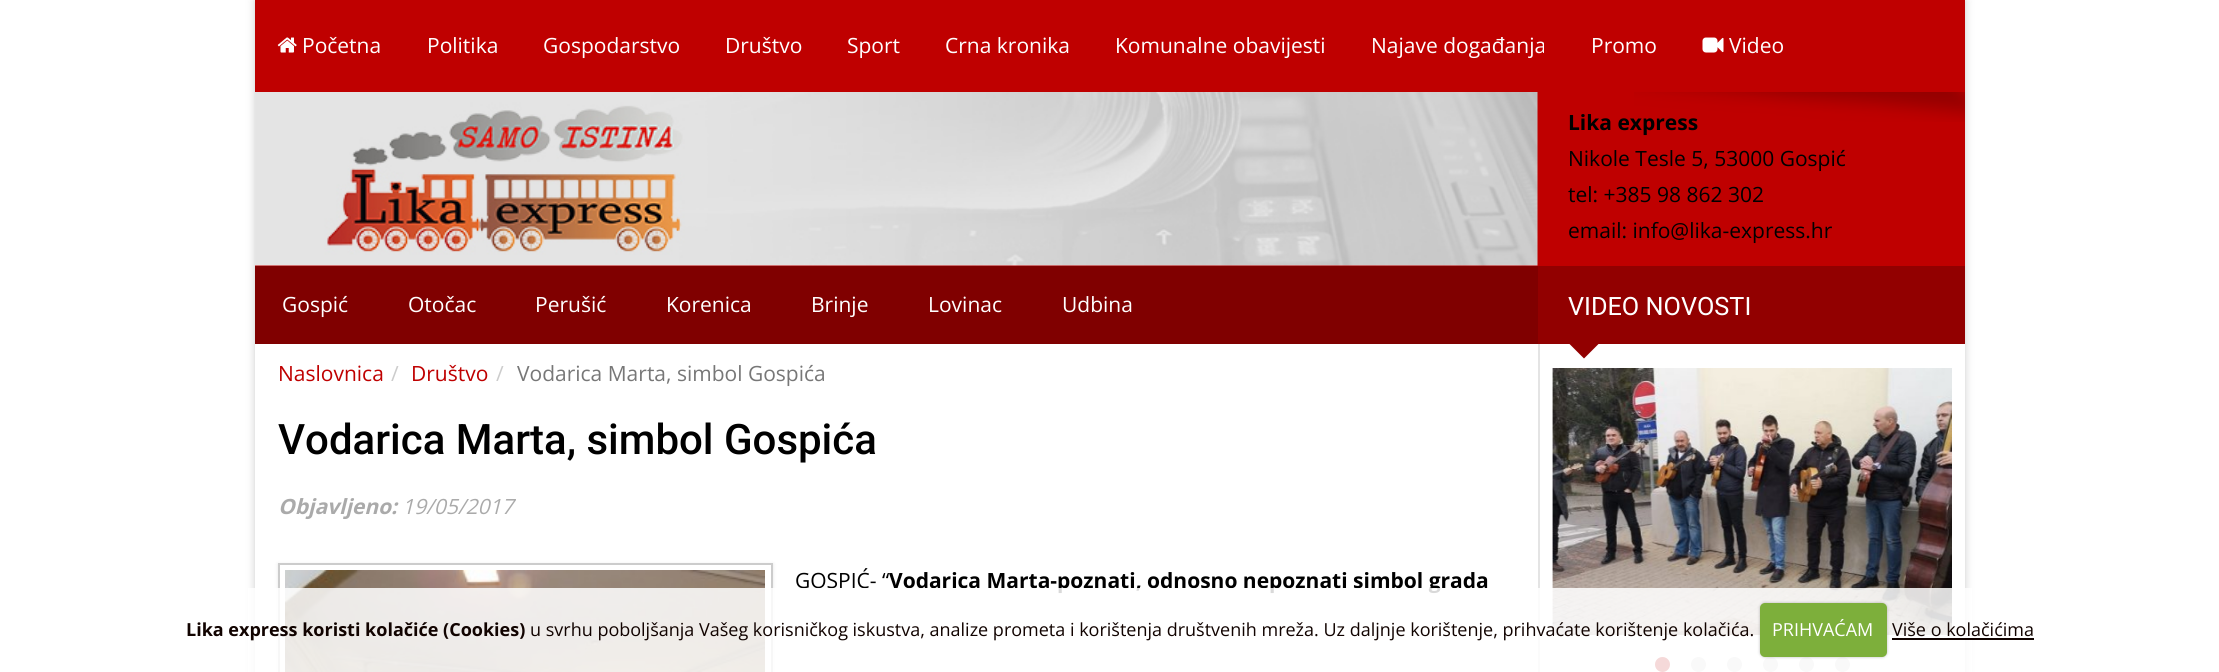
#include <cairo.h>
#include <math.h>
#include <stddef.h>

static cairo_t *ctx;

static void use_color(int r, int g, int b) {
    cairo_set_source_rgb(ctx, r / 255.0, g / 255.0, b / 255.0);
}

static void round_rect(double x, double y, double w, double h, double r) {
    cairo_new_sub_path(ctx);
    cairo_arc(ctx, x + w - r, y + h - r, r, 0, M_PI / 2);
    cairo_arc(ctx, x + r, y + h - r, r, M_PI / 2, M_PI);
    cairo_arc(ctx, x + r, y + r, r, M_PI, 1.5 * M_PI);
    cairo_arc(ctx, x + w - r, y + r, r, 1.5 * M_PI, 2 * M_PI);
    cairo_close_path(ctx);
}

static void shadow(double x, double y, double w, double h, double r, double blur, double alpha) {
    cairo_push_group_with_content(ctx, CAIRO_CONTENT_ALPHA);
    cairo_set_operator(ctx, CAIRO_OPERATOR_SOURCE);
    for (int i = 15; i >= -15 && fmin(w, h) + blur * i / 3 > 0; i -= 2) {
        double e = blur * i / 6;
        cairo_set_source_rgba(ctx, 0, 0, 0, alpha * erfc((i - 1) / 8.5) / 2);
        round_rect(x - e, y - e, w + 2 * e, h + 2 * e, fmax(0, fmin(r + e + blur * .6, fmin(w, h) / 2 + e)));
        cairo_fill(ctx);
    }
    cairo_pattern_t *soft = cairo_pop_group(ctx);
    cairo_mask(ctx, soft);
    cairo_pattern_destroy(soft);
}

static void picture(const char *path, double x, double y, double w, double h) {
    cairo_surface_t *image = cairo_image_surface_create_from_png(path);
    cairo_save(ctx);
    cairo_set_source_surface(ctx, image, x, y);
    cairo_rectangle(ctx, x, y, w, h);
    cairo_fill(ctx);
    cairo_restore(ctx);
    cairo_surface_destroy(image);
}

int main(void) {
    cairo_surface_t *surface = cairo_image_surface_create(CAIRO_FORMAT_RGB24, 2219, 672);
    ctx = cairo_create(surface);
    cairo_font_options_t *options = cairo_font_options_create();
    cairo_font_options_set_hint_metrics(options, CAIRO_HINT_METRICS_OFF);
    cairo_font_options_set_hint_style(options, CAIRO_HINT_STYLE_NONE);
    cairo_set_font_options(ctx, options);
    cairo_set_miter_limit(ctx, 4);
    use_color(255, 255, 255);
    cairo_paint(ctx);
    cairo_save(ctx);
    cairo_set_fill_rule(ctx, CAIRO_FILL_RULE_EVEN_ODD);
    cairo_new_path(ctx);
    cairo_move_to(ctx, 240, 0);
    cairo_line_to(ctx, 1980, 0);
    cairo_line_to(ctx, 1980, 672);
    cairo_line_to(ctx, 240, 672);
    cairo_close_path(ctx);
    cairo_move_to(ctx, 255, 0);
    cairo_line_to(ctx, 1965, 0);
    cairo_line_to(ctx, 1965, 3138);
    cairo_line_to(ctx, 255, 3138);
    cairo_close_path(ctx);
    cairo_clip(ctx);
    use_color(0, 0, 0);
    shadow(255, 0, 1710, 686, 0, 4.5, 0.2);
    cairo_restore(ctx);
    use_color(191, 0, 0);
    cairo_rectangle(ctx, 255, 0, 1710, 266);
    cairo_fill(ctx);
    picture("img1.png", 277, 37, 20, 16);
    cairo_select_font_face(ctx, "Open Sans", CAIRO_FONT_SLANT_NORMAL, CAIRO_FONT_WEIGHT_NORMAL);
    cairo_set_font_size(ctx, 21);
    use_color(255, 255, 255);
    cairo_move_to(ctx, 302, 53);
    cairo_show_text(ctx, "Početna");
    cairo_move_to(ctx, 427, 53);
    cairo_show_text(ctx, "Politika");
    cairo_move_to(ctx, 543, 53);
    cairo_show_text(ctx, "Gospodarstvo");
    cairo_move_to(ctx, 725, 53);
    cairo_show_text(ctx, "Društvo");
    cairo_move_to(ctx, 847, 53);
    cairo_show_text(ctx, "Sport");
    cairo_move_to(ctx, 945, 53);
    cairo_show_text(ctx, "Crna kronika");
    cairo_move_to(ctx, 1115, 53);
    cairo_show_text(ctx, "Komunalne obavijesti");
    cairo_move_to(ctx, 1371, 53);
    cairo_show_text(ctx, "Najave događanja");
    cairo_move_to(ctx, 1591, 53);
    cairo_show_text(ctx, "Promo");
    picture("img2.png", 1702, 37, 22, 16);
    cairo_move_to(ctx, 1729, 53);
    cairo_show_text(ctx, "Video");
    picture("img3.png", 255, 92, 1283, 174);
    picture("img4.png", 1634, 92, 331, 30);
    cairo_select_font_face(ctx, "Open Sans", CAIRO_FONT_SLANT_NORMAL, CAIRO_FONT_WEIGHT_BOLD);
    use_color(0, 0, 0);
    cairo_move_to(ctx, 1568, 130);
    cairo_show_text(ctx, "Lika express");
    cairo_select_font_face(ctx, "Open Sans", CAIRO_FONT_SLANT_NORMAL, CAIRO_FONT_WEIGHT_NORMAL);
    cairo_move_to(ctx, 1568, 166);
    cairo_show_text(ctx, "Nikole Tesle 5, 53000 Gospić");
    cairo_move_to(ctx, 1568, 202);
    cairo_show_text(ctx, "tel: +385 98 862 302");
    cairo_move_to(ctx, 1568, 238);
    cairo_show_text(ctx, "email: info@lika-express.hr");
    use_color(146, 0, 0);
    cairo_rectangle(ctx, 1538, 266, 427, 78);
    cairo_fill(ctx);
    use_color(128, 0, 0);
    cairo_rectangle(ctx, 255, 266, 1283, 78);
    cairo_fill(ctx);
    use_color(255, 255, 255);
    cairo_move_to(ctx, 282, 312);
    cairo_show_text(ctx, "Gospić");
    cairo_move_to(ctx, 408, 312);
    cairo_show_text(ctx, "Otočac");
    cairo_move_to(ctx, 535, 312);
    cairo_show_text(ctx, "Perušić");
    cairo_move_to(ctx, 666, 312);
    cairo_show_text(ctx, "Korenica");
    cairo_move_to(ctx, 811, 312);
    cairo_show_text(ctx, "Brinje");
    cairo_move_to(ctx, 928, 312);
    cairo_show_text(ctx, "Lovinac");
    cairo_move_to(ctx, 1062, 312);
    cairo_show_text(ctx, "Udbina");
    cairo_select_font_face(ctx, "Roboto", CAIRO_FONT_SLANT_NORMAL, CAIRO_FONT_WEIGHT_NORMAL);
    cairo_set_font_size(ctx, 25.25);
    cairo_move_to(ctx, 1568, 315);
    cairo_show_text(ctx, "VIDEO NOVOSTI");
    use_color(146, 0, 0);
    cairo_new_path(ctx);
    cairo_move_to(ctx, 1569, 343.5);
    cairo_line_to(ctx, 1599, 343.5);
    cairo_line_to(ctx, 1584, 358.5);
    cairo_close_path(ctx);
    cairo_fill(ctx);
    cairo_select_font_face(ctx, "Open Sans", CAIRO_FONT_SLANT_NORMAL, CAIRO_FONT_WEIGHT_NORMAL);
    cairo_set_font_size(ctx, 21);
    use_color(191, 0, 0);
    cairo_move_to(ctx, 278, 381);
    cairo_show_text(ctx, "Naslovnica");
    use_color(204, 204, 204);
    cairo_move_to(ctx, 391, 381);
    cairo_show_text(ctx, "/");
    use_color(191, 0, 0);
    cairo_move_to(ctx, 411, 381);
    cairo_show_text(ctx, "Društvo");
    use_color(204, 204, 204);
    cairo_move_to(ctx, 496, 381);
    cairo_show_text(ctx, "/");
    use_color(119, 119, 119);
    cairo_move_to(ctx, 517, 381);
    cairo_show_text(ctx, "Vodarica Marta, simbol Gospića");
    cairo_select_font_face(ctx, "Roboto Medium", CAIRO_FONT_SLANT_NORMAL, CAIRO_FONT_WEIGHT_NORMAL);
    cairo_set_font_size(ctx, 42);
    use_color(0, 0, 0);
    cairo_move_to(ctx, 278, 454);
    cairo_show_text(ctx, "Vodarica Marta, simbol Gospića");
    cairo_select_font_face(ctx, "Open Sans", CAIRO_FONT_SLANT_ITALIC, CAIRO_FONT_WEIGHT_BOLD);
    cairo_set_font_size(ctx, 21);
    use_color(170, 170, 170);
    cairo_move_to(ctx, 278, 514);
    cairo_show_text(ctx, "Objavljeno:");
    cairo_select_font_face(ctx, "Open Sans", CAIRO_FONT_SLANT_ITALIC, CAIRO_FONT_WEIGHT_NORMAL);
    cairo_move_to(ctx, 402, 514);
    cairo_show_text(ctx, "19/05/2017");
    use_color(0, 0, 0);
    shadow(278, 564, 495, 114, 0, 2, 0.1);
    use_color(255, 255, 255);
    cairo_rectangle(ctx, 279, 564, 493, 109);
    cairo_fill_preserve(ctx);
    use_color(204, 204, 204);
    cairo_stroke(ctx);
    picture("img5.png", 285, 570, 480, 102);
    cairo_select_font_face(ctx, "Open Sans", CAIRO_FONT_SLANT_NORMAL, CAIRO_FONT_WEIGHT_NORMAL);
    use_color(0, 0, 0);
    cairo_move_to(ctx, 795, 588);
    cairo_show_text(ctx, "GOSPIĆ- “");
    cairo_select_font_face(ctx, "Open Sans", CAIRO_FONT_SLANT_NORMAL, CAIRO_FONT_WEIGHT_BOLD);
    cairo_move_to(ctx, 889, 588);
    cairo_show_text(ctx, "Vodarica Marta-poznati, odnosno nepoznati simbol grada");
    use_color(228, 228, 228);
    cairo_rectangle(ctx, 1538, 344, 2, 328);
    cairo_fill(ctx);
    picture("img6.png", 1552, 368, 400, 267);
    use_color(191, 0, 0);
    cairo_arc(ctx, 1662.5, 664.5, 7.5, 0, 2 * M_PI);
    cairo_fill(ctx);
    use_color(214, 214, 214);
    cairo_arc(ctx, 1698.5, 664.5, 7.5, 0, 2 * M_PI);
    cairo_fill(ctx);
    cairo_arc(ctx, 1734.5, 664.5, 7.5, 0, 2 * M_PI);
    cairo_fill(ctx);
    cairo_arc(ctx, 1770.5, 664.5, 7.5, 0, 2 * M_PI);
    cairo_fill(ctx);
    cairo_arc(ctx, 1806.5, 664.5, 7.5, 0, 2 * M_PI);
    cairo_fill(ctx);
    cairo_arc(ctx, 1842.5, 664.5, 7.5, 0, 2 * M_PI);
    cairo_fill(ctx);
    cairo_set_source_rgba(ctx, 1, 1, 1, 0.85);
    cairo_rectangle(ctx, 248, 588, 1724, 84);
    cairo_fill(ctx);
    cairo_set_font_size(ctx, 18);
    use_color(17, 3, 0);
    cairo_move_to(ctx, 186, 636);
    cairo_show_text(ctx, "Lika express koristi kolačiće (Cookies)");
    cairo_select_font_face(ctx, "Open Sans", CAIRO_FONT_SLANT_NORMAL, CAIRO_FONT_WEIGHT_NORMAL);
    cairo_move_to(ctx, 530, 636);
    cairo_show_text(ctx, "u svrhu poboljšanja Vašeg korisničkog iskustva, analize prometa i korištenja društvenih mreža. Uz daljnje korištenje, prihvaćate korištenje kolačića.");
    use_color(0, 0, 0);
    shadow(1760, 603, 127, 54, 5, 1.5, 0.25);
    use_color(125, 175, 59);
    round_rect(1760, 603, 127, 54, 5);
    cairo_fill(ctx);
    use_color(255, 255, 255);
    cairo_move_to(ctx, 1772, 636);
    cairo_show_text(ctx, "PRIHVAĆAM");
    use_color(17, 3, 0);
    cairo_move_to(ctx, 1892, 636);
    cairo_show_text(ctx, "Više o kolačićima");
    cairo_rectangle(ctx, 1892, 638, 142, 2);
    cairo_fill(ctx);
    cairo_surface_write_to_png(surface, "result.png");
    cairo_font_options_destroy(options);
    cairo_destroy(ctx);
    cairo_surface_destroy(surface);
    return 0;
}
